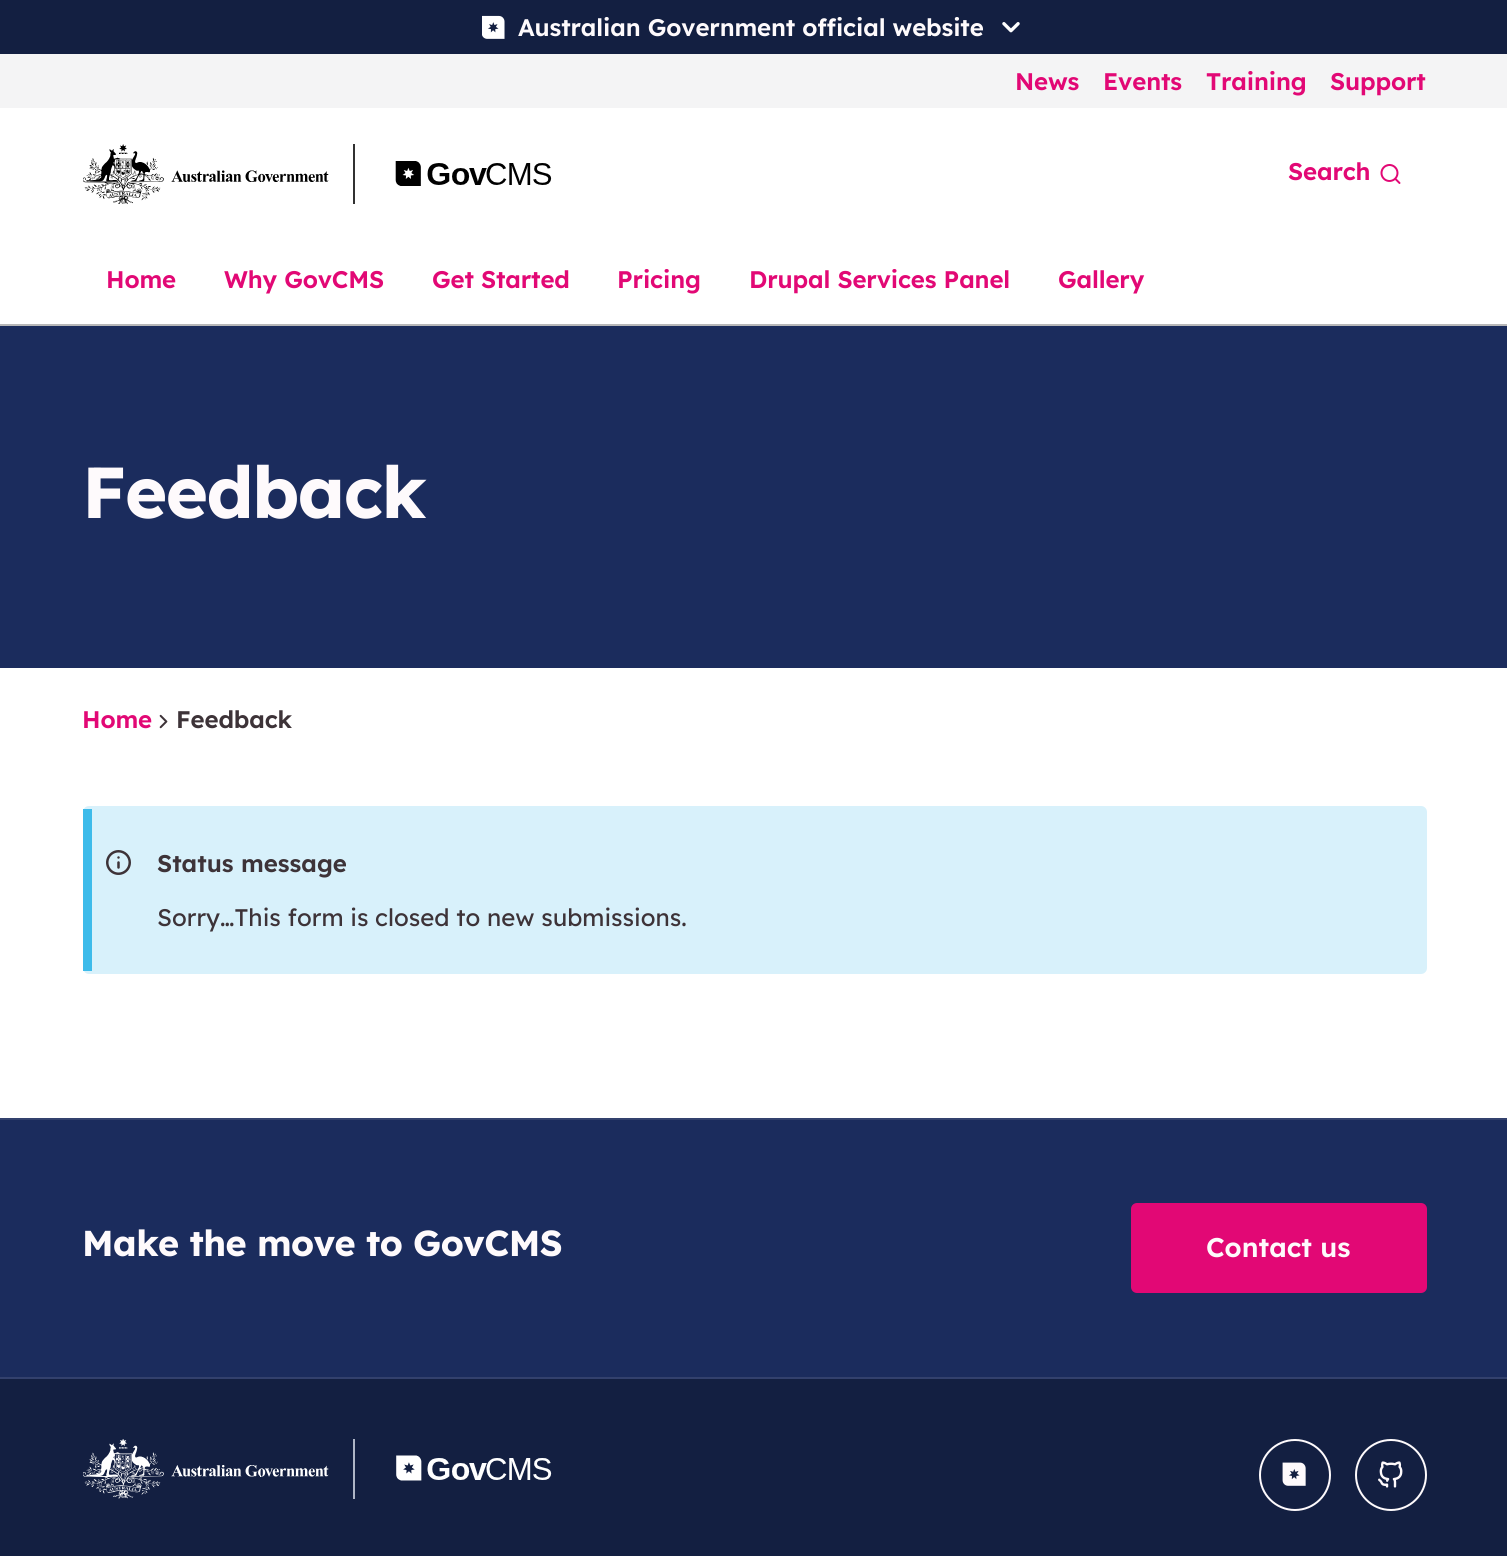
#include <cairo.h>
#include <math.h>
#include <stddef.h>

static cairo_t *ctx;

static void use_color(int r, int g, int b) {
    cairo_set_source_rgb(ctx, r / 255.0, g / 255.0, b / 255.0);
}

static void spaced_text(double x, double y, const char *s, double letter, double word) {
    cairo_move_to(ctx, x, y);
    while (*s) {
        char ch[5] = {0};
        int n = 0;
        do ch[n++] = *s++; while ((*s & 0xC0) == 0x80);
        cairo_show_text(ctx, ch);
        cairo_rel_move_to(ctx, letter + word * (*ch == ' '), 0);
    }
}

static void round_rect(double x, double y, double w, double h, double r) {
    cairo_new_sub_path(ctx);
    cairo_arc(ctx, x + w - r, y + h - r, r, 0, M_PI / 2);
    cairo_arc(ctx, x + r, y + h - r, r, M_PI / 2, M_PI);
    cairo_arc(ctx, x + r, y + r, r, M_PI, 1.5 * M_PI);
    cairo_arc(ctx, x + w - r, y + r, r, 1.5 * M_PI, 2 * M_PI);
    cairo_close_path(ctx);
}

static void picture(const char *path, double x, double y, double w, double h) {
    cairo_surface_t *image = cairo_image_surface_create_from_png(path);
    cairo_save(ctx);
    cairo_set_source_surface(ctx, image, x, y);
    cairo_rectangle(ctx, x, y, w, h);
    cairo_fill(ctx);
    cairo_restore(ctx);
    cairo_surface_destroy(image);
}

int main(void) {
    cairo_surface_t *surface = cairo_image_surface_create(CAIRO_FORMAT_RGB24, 1507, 1556);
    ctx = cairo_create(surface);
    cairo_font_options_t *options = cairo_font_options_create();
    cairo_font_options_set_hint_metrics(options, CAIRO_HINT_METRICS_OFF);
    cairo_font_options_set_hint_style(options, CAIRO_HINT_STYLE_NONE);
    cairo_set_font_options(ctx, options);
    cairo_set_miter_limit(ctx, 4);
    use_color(255, 255, 255);
    cairo_paint(ctx);
    use_color(19, 31, 65);
    cairo_rectangle(ctx, 0, 0, 1507, 54);
    cairo_fill(ctx);
    picture("img1.png", 482, 15, 23, 24);
    cairo_select_font_face(ctx, "Lexend SemiBold", CAIRO_FONT_SLANT_NORMAL, CAIRO_FONT_WEIGHT_NORMAL);
    cairo_set_font_size(ctx, 24);
    use_color(254, 250, 252);
    spaced_text(518, 36, "Australian Government official website", -0.15, 0);
    picture("img2.png", 1002, 22, 18, 11);
    use_color(183, 183, 184);
    cairo_rectangle(ctx, 0, 324, 1507, 2);
    cairo_fill(ctx);
    use_color(244, 244, 245);
    cairo_rectangle(ctx, 0, 54, 1507, 54);
    cairo_fill(ctx);
    use_color(226, 8, 117);
    spaced_text(1015, 90, "News", -0.15, 0);
    spaced_text(1103, 90, "Events", -0.15, 0);
    spaced_text(1206, 90, "Training", -0.15, 0);
    spaced_text(1330, 90, "Support", -0.15, 0);
    picture("img3.png", 83, 144, 246, 60);
    use_color(49, 49, 49);
    cairo_rectangle(ctx, 353, 144, 2, 60);
    cairo_fill(ctx);
    picture("img4.png", 395, 161, 157, 25);
    use_color(226, 8, 117);
    spaced_text(1288, 180, "Search", -0.15, 0);
    picture("img5.png", 1380, 164, 21, 20);
    spaced_text(106, 288, "Home", -0.15, 0);
    spaced_text(224, 288, "Why GovCMS", -0.15, 0);
    spaced_text(432, 288, "Get Started", -0.15, 0);
    spaced_text(617, 288, "Pricing", -0.15, 0);
    spaced_text(749, 288, "Drupal Services Panel", -0.15, 0);
    spaced_text(1058, 288, "Gallery", -0.15, 0);
    use_color(27, 44, 93);
    cairo_rectangle(ctx, 0, 326, 1507, 342);
    cairo_fill(ctx);
    cairo_select_font_face(ctx, "Lexend", CAIRO_FONT_SLANT_NORMAL, CAIRO_FONT_WEIGHT_BOLD);
    cairo_set_font_size(ctx, 72);
    use_color(254, 250, 252);
    spaced_text(82, 518, "Feedback", -1.5, 0);
    cairo_select_font_face(ctx, "Lexend SemiBold", CAIRO_FONT_SLANT_NORMAL, CAIRO_FONT_WEIGHT_NORMAL);
    cairo_set_font_size(ctx, 24);
    use_color(226, 8, 117);
    spaced_text(82, 728, "Home", -0.15, 0);
    picture("img6.png", 159, 714, 9, 15);
    use_color(61, 51, 56);
    spaced_text(176, 728, "Feedback", -0.15, 0);
    use_color(216, 241, 251);
    round_rect(83, 806, 1344, 168, 6);
    cairo_fill(ctx);
    use_color(61, 187, 234);
    cairo_rectangle(ctx, 83, 809, 9, 162);
    cairo_fill(ctx);
    picture("img7.png", 106, 850, 25, 25);
    use_color(61, 51, 56);
    cairo_move_to(ctx, 157, 872);
    cairo_show_text(ctx, "Status message");
    cairo_select_font_face(ctx, "Lexend", CAIRO_FONT_SLANT_NORMAL, CAIRO_FONT_WEIGHT_NORMAL);
    cairo_move_to(ctx, 157, 926);
    cairo_show_text(ctx, "Sorry…This form is closed to new submissions.");
    use_color(27, 44, 93);
    cairo_rectangle(ctx, 0, 1120, 1507, 257);
    cairo_fill(ctx);
    use_color(51, 65, 109);
    cairo_rectangle(ctx, 0, 1118, 1507, 2);
    cairo_fill(ctx);
    cairo_rectangle(ctx, 0, 1377, 1507, 2);
    cairo_fill(ctx);
    cairo_select_font_face(ctx, "Lexend", CAIRO_FONT_SLANT_NORMAL, CAIRO_FONT_WEIGHT_BOLD);
    cairo_set_font_size(ctx, 36);
    use_color(254, 250, 252);
    spaced_text(82, 1256, "Make the move to GovCMS", -0.6, 0);
    use_color(226, 8, 117);
    round_rect(1132.5, 1204.5, 293, 87, 4.5);
    cairo_fill_preserve(ctx);
    cairo_set_line_width(ctx, 3);
    cairo_stroke(ctx);
    cairo_select_font_face(ctx, "Lexend SemiBold", CAIRO_FONT_SLANT_NORMAL, CAIRO_FONT_WEIGHT_NORMAL);
    cairo_set_font_size(ctx, 27);
    use_color(254, 250, 252);
    cairo_move_to(ctx, 1206, 1257);
    cairo_show_text(ctx, "Contact us");
    use_color(19, 31, 65);
    cairo_rectangle(ctx, 0, 1379, 1507, 177);
    cairo_fill(ctx);
    picture("img8.png", 83, 1439, 246, 60);
    use_color(174, 181, 198);
    cairo_rectangle(ctx, 353, 1439, 2, 60);
    cairo_fill(ctx);
    picture("img9.png", 396, 1455, 156, 26);
    cairo_arc(ctx, 1295, 1475, 35, 0, 2 * M_PI);
    use_color(254, 250, 252);
    cairo_set_line_width(ctx, 2);
    cairo_stroke(ctx);
    picture("img10.png", 1282, 1462, 24, 24);
    cairo_arc(ctx, 1391, 1475, 35, 0, 2 * M_PI);
    cairo_stroke(ctx);
    picture("img11.png", 1378, 1461, 25, 27);
    cairo_surface_write_to_png(surface, "result.png");
    cairo_font_options_destroy(options);
    cairo_destroy(ctx);
    cairo_surface_destroy(surface);
    return 0;
}
